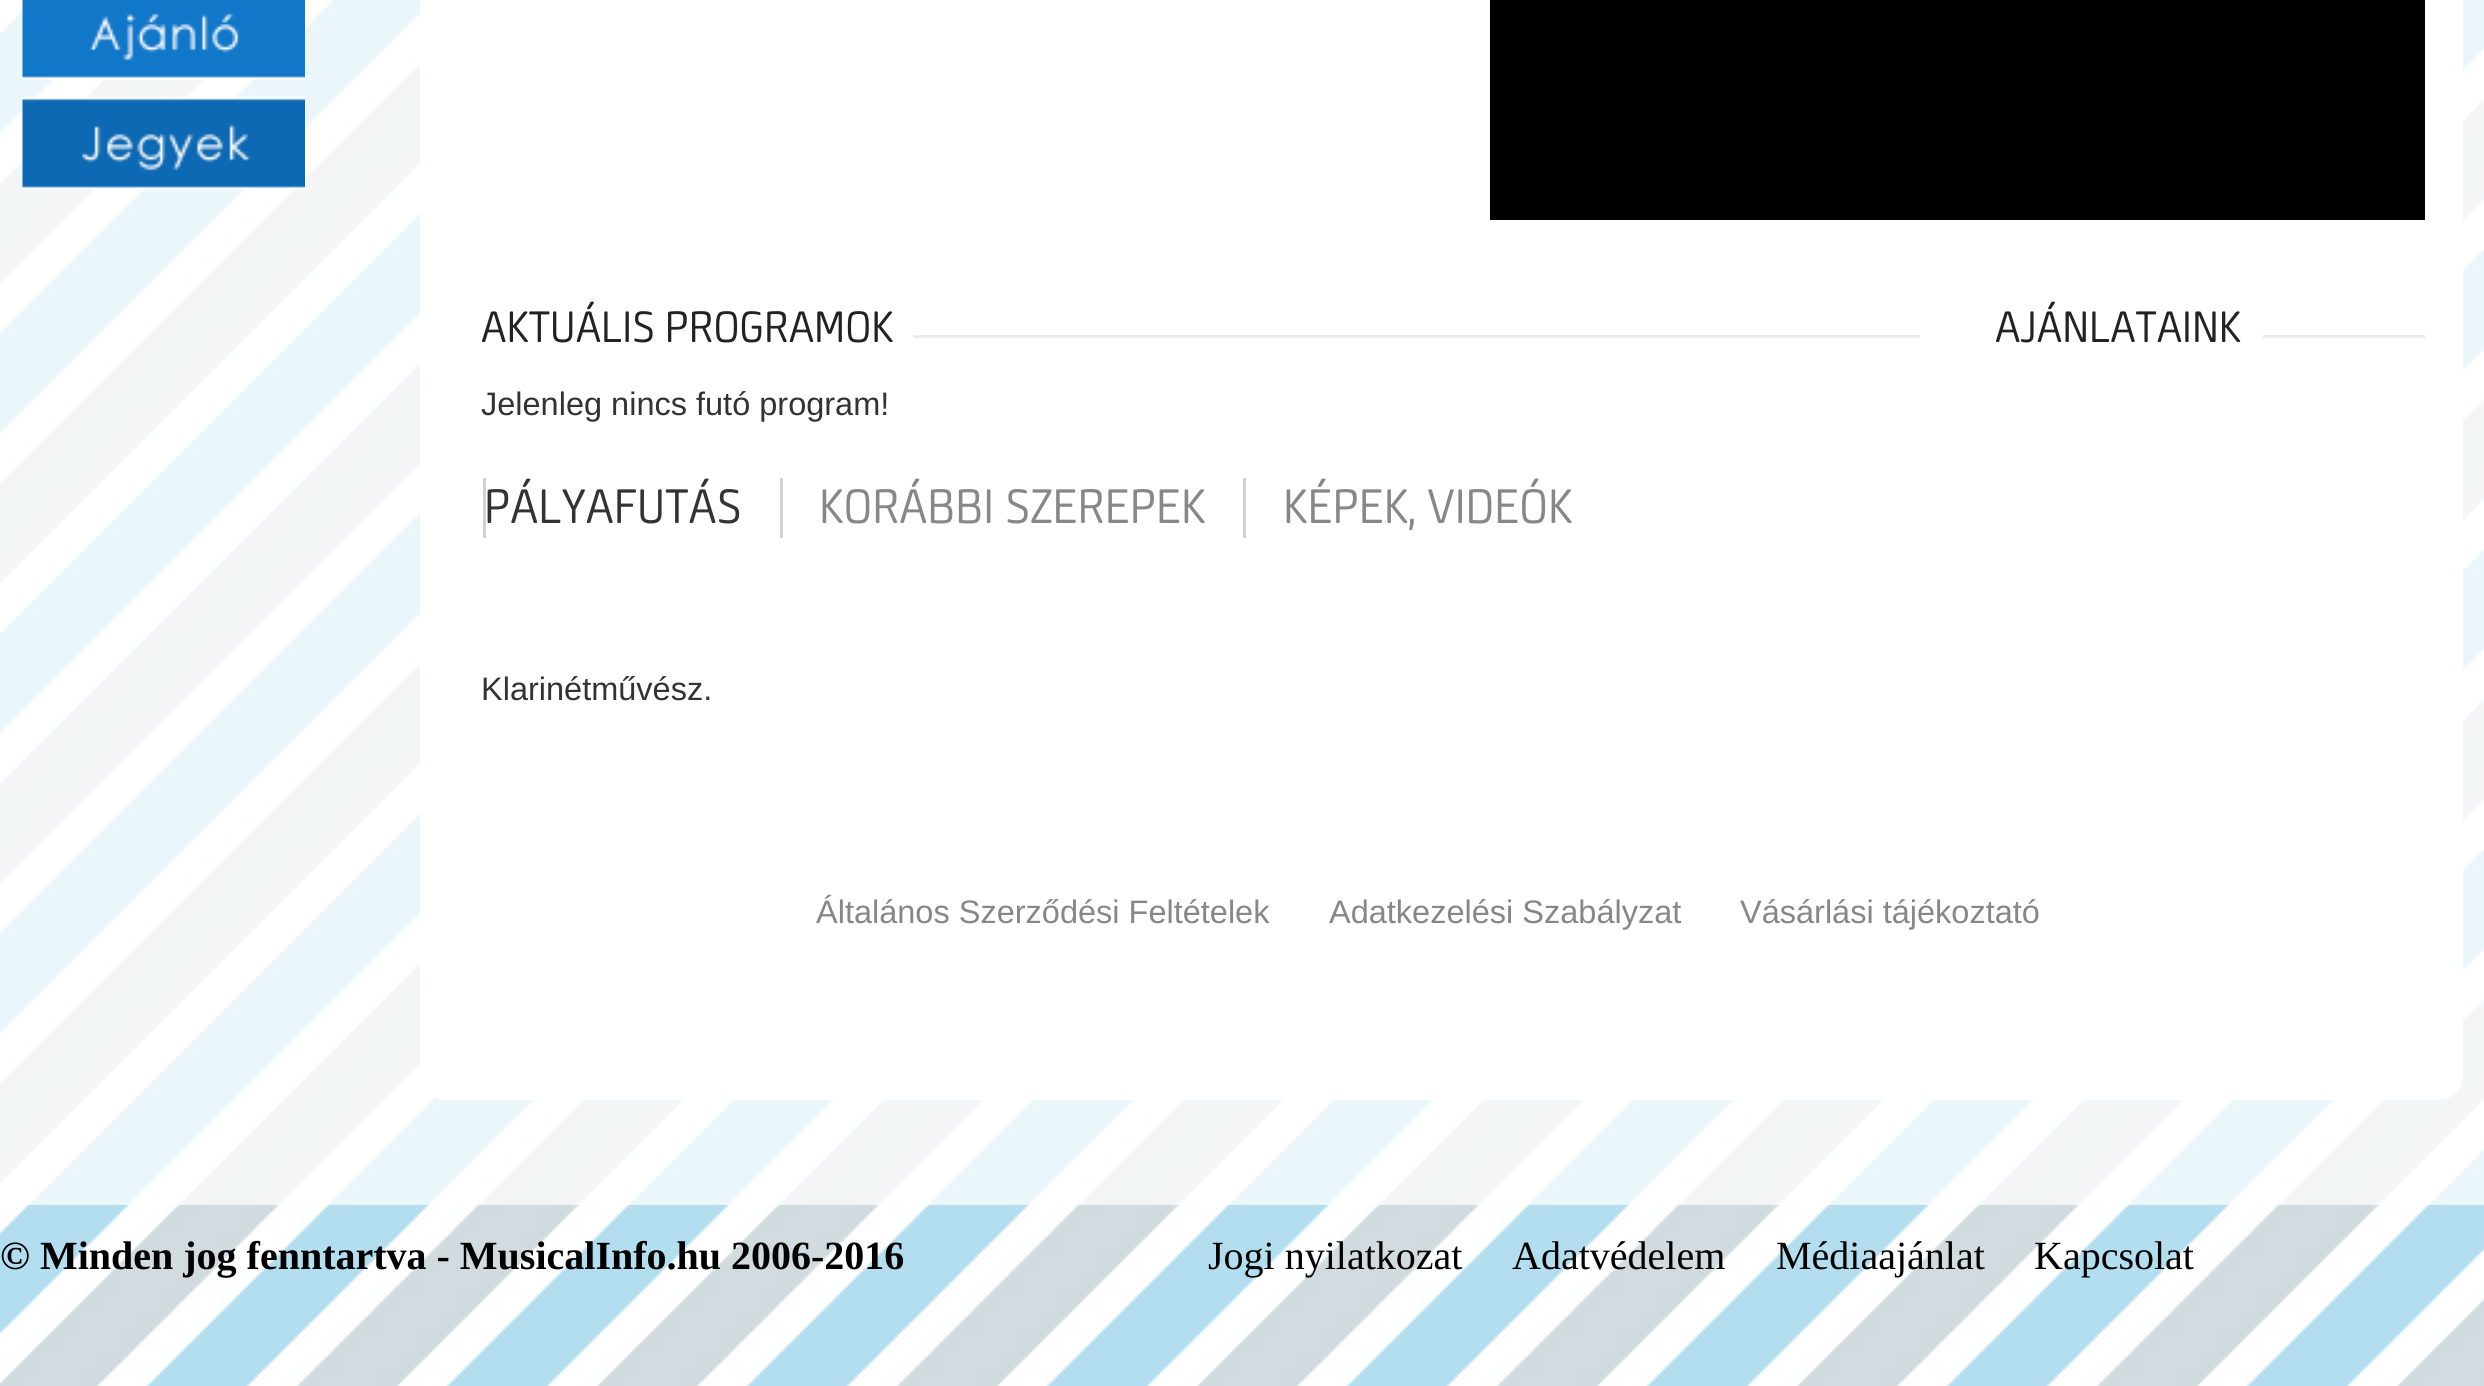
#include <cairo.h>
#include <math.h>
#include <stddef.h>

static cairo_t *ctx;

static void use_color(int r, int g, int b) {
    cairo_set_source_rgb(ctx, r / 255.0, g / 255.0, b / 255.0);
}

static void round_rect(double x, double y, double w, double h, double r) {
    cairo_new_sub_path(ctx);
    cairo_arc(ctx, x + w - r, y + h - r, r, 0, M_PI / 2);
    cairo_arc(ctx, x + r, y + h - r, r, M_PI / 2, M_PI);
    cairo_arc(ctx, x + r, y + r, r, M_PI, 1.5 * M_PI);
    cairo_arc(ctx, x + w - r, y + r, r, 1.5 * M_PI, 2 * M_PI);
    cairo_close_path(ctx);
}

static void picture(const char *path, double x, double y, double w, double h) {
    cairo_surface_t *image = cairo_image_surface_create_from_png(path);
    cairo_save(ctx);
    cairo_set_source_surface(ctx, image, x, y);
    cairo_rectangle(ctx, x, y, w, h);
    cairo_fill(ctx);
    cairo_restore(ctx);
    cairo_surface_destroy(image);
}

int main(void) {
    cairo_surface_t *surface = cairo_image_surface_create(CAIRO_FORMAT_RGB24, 2484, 1386);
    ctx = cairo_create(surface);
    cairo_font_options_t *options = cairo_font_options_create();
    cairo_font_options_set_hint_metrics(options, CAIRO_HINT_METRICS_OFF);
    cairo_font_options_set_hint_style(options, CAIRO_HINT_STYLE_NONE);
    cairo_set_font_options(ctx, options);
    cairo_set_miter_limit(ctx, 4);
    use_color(255, 255, 255);
    cairo_paint(ctx);
    picture("img1.png", 0, 0, 2484, 1386);
    cairo_set_source_rgba(ctx, 1, 1, 1, 0.74);
    cairo_rectangle(ctx, 0, 0, 2484, 1205);
    cairo_fill(ctx);
    picture("img2.png", 22, 0, 283, 80);
    picture("img3.png", 22, 96, 283, 94);
    use_color(255, 255, 255);
    round_rect(420, -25, 2043, 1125, 25);
    cairo_fill(ctx);
    use_color(0, 0, 0);
    cairo_rectangle(ctx, 1490, 0, 935, 220);
    cairo_fill(ctx);
    cairo_select_font_face(ctx, "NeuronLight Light", CAIRO_FONT_SLANT_NORMAL, CAIRO_FONT_WEIGHT_NORMAL);
    cairo_set_font_size(ctx, 50);
    use_color(34, 34, 34);
    cairo_move_to(ctx, 481, 342);
    cairo_show_text(ctx, "AKTUÁLIS PROGRAMOK");
    use_color(236, 236, 236);
    cairo_rectangle(ctx, 913, 335, 1007, 3);
    cairo_fill(ctx);
    cairo_select_font_face(ctx, "Liberation Sans", CAIRO_FONT_SLANT_NORMAL, CAIRO_FONT_WEIGHT_NORMAL);
    cairo_set_font_size(ctx, 32.5);
    use_color(51, 51, 51);
    cairo_move_to(ctx, 481, 415);
    cairo_show_text(ctx, "Jelenleg nincs futó program!");
    use_color(210, 210, 210);
    cairo_rectangle(ctx, 483, 478, 3, 60);
    cairo_fill(ctx);
    cairo_select_font_face(ctx, "NeuronLight Light", CAIRO_FONT_SLANT_NORMAL, CAIRO_FONT_WEIGHT_NORMAL);
    cairo_set_font_size(ctx, 55);
    use_color(51, 51, 51);
    cairo_move_to(ctx, 484, 523);
    cairo_show_text(ctx, "PÁLYAFUTÁS");
    use_color(210, 210, 210);
    cairo_rectangle(ctx, 780, 478, 3, 60);
    cairo_fill(ctx);
    use_color(135, 135, 135);
    cairo_move_to(ctx, 819, 523);
    cairo_show_text(ctx, "KORÁBBI SZEREPEK");
    use_color(210, 210, 210);
    cairo_rectangle(ctx, 1243, 478, 3, 60);
    cairo_fill(ctx);
    use_color(135, 135, 135);
    cairo_move_to(ctx, 1283, 523);
    cairo_show_text(ctx, "KÉPEK, VIDEÓK");
    cairo_select_font_face(ctx, "Liberation Sans", CAIRO_FONT_SLANT_NORMAL, CAIRO_FONT_WEIGHT_NORMAL);
    cairo_set_font_size(ctx, 32.5);
    use_color(51, 51, 51);
    cairo_move_to(ctx, 481, 700);
    cairo_show_text(ctx, "Klarinétművész.");
    cairo_select_font_face(ctx, "NeuronLight Light", CAIRO_FONT_SLANT_NORMAL, CAIRO_FONT_WEIGHT_NORMAL);
    cairo_set_font_size(ctx, 50);
    use_color(34, 34, 34);
    cairo_move_to(ctx, 1995, 342);
    cairo_show_text(ctx, "AJÁNLATAINK");
    use_color(236, 236, 236);
    cairo_rectangle(ctx, 2263, 335, 162, 3);
    cairo_fill(ctx);
    cairo_select_font_face(ctx, "Liberation Sans", CAIRO_FONT_SLANT_NORMAL, CAIRO_FONT_WEIGHT_NORMAL);
    cairo_set_font_size(ctx, 32.5);
    use_color(135, 135, 135);
    cairo_move_to(ctx, 816, 923);
    cairo_show_text(ctx, "Általános Szerződési Feltételek");
    cairo_move_to(ctx, 1329, 923);
    cairo_show_text(ctx, "Adatkezelési Szabályzat");
    cairo_move_to(ctx, 1740, 923);
    cairo_show_text(ctx, "Vásárlási tájékoztató");
    cairo_select_font_face(ctx, "Liberation Serif", CAIRO_FONT_SLANT_NORMAL, CAIRO_FONT_WEIGHT_BOLD);
    cairo_set_font_size(ctx, 40);
    use_color(0, 0, 0);
    cairo_move_to(ctx, 0, 1269);
    cairo_show_text(ctx, "© Minden jog fenntartva - MusicalInfo.hu 2006-2016");
    cairo_select_font_face(ctx, "Liberation Serif", CAIRO_FONT_SLANT_NORMAL, CAIRO_FONT_WEIGHT_NORMAL);
    cairo_move_to(ctx, 1208, 1269);
    cairo_show_text(ctx, "Jogi nyilatkozat");
    cairo_move_to(ctx, 1512, 1269);
    cairo_show_text(ctx, "Adatvédelem");
    cairo_move_to(ctx, 1776, 1269);
    cairo_show_text(ctx, "Médiaajánlat");
    cairo_move_to(ctx, 2034, 1269);
    cairo_show_text(ctx, "Kapcsolat");
    cairo_surface_write_to_png(surface, "result.png");
    cairo_font_options_destroy(options);
    cairo_destroy(ctx);
    cairo_surface_destroy(surface);
    return 0;
}
